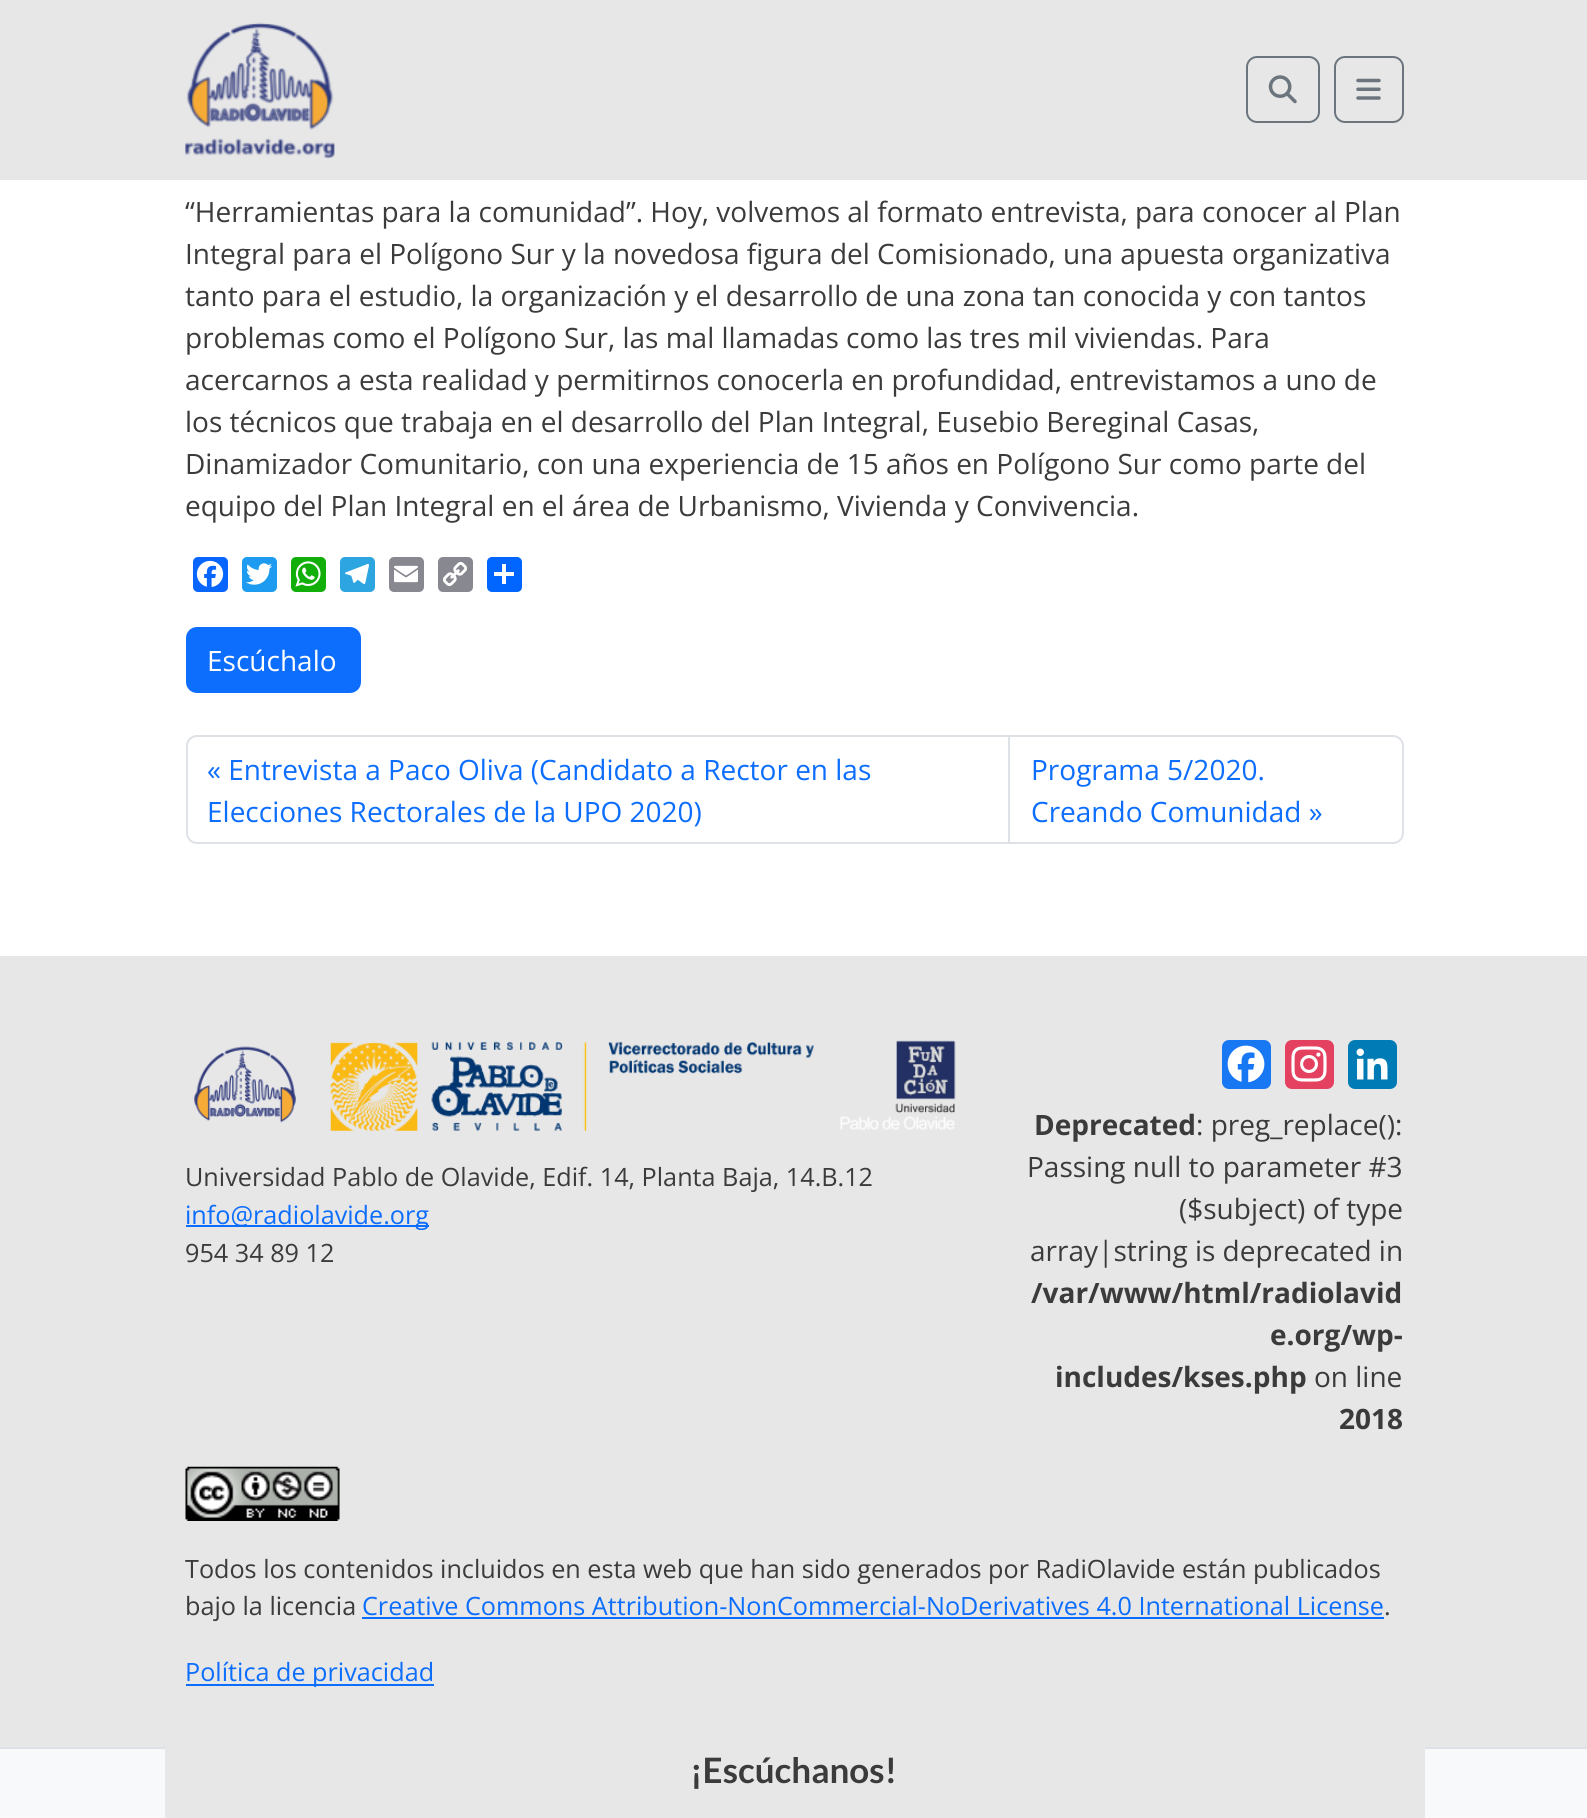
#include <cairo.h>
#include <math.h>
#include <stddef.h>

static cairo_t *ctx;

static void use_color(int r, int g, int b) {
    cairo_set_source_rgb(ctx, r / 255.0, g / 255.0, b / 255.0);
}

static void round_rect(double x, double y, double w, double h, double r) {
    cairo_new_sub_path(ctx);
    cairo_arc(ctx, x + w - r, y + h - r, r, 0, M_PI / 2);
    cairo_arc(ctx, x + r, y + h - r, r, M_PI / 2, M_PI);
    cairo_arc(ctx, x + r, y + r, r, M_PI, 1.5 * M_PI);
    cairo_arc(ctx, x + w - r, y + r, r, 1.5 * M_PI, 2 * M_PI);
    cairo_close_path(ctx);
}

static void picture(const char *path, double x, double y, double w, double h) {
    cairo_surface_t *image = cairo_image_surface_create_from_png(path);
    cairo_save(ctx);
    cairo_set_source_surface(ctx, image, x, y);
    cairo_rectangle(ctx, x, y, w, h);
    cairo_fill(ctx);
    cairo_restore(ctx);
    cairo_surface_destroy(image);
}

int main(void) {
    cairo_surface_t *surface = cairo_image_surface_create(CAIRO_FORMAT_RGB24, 1587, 1818);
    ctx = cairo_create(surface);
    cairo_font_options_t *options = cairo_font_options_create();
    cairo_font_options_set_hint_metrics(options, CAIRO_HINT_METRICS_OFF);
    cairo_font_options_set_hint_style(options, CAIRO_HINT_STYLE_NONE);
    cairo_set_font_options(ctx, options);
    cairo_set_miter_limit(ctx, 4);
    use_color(255, 255, 255);
    cairo_paint(ctx);
    use_color(231, 231, 231);
    cairo_rectangle(ctx, 0, 0, 1587, 180);
    cairo_fill(ctx);
    picture("img1.png", 185, 22, 150, 136);
    round_rect(1247, 57, 72, 65, 10);
    use_color(108, 117, 125);
    cairo_stroke(ctx);
    picture("img2.png", 1268, 75, 29, 29);
    round_rect(1335, 57, 68, 65, 10);
    cairo_stroke(ctx);
    picture("img3.png", 1356, 78, 25, 22);
    cairo_select_font_face(ctx, "Open Sans", CAIRO_FONT_SLANT_NORMAL, CAIRO_FONT_WEIGHT_NORMAL);
    cairo_set_font_size(ctx, 28);
    use_color(59, 59, 59);
    cairo_move_to(ctx, 185, 222);
    cairo_show_text(ctx, "“Herramientas para la comunidad”. Hoy, volvemos al formato entrevista, para conocer al Plan");
    cairo_move_to(ctx, 185, 264);
    cairo_show_text(ctx, "Integral para el Polígono Sur y la novedosa figura del Comisionado, una apuesta organizativa");
    cairo_move_to(ctx, 185, 306);
    cairo_show_text(ctx, "tanto para el estudio, la organización y el desarrollo de una zona tan conocida y con tantos");
    cairo_move_to(ctx, 185, 348);
    cairo_show_text(ctx, "problemas como el Polígono Sur, las mal llamadas como las tres mil viviendas. Para");
    cairo_move_to(ctx, 185, 390);
    cairo_show_text(ctx, "acercarnos a esta realidad y permitirnos conocerla en profundidad, entrevistamos a uno de");
    cairo_move_to(ctx, 185, 432);
    cairo_show_text(ctx, "los técnicos que trabaja en el desarrollo del Plan Integral, Eusebio Bereginal Casas,");
    cairo_move_to(ctx, 185, 474);
    cairo_show_text(ctx, "Dinamizador Comunitario, con una experiencia de 15 años en Polígono Sur como parte del");
    cairo_move_to(ctx, 185, 516);
    cairo_show_text(ctx, "equipo del Plan Integral en el área de Urbanismo, Vivienda y Convivencia.");
    use_color(8, 102, 255);
    round_rect(193, 557, 35, 35, 5);
    cairo_fill(ctx);
    picture("img4.png", 196, 560, 28, 27);
    use_color(29, 155, 240);
    round_rect(242, 557, 35, 35, 5);
    cairo_fill(ctx);
    picture("img5.png", 246, 563, 26, 22);
    use_color(18, 175, 10);
    round_rect(291, 557, 35, 35, 5);
    cairo_fill(ctx);
    picture("img6.png", 295, 561, 26, 26);
    use_color(44, 165, 224);
    round_rect(340, 557, 35, 35, 5);
    cairo_fill(ctx);
    picture("img7.png", 345, 564, 24, 21);
    use_color(136, 137, 144);
    round_rect(389, 557, 35, 35, 5);
    cairo_fill(ctx);
    picture("img8.png", 394, 565, 24, 18);
    round_rect(438, 557, 35, 35, 5);
    cairo_fill(ctx);
    picture("img9.png", 443, 562, 24, 24);
    use_color(1, 102, 255);
    round_rect(487, 557, 35, 35, 5);
    cairo_fill(ctx);
    use_color(255, 255, 255);
    cairo_rectangle(ctx, 502, 564, 4, 20);
    cairo_fill(ctx);
    cairo_rectangle(ctx, 494, 572, 20, 4);
    cairo_fill(ctx);
    use_color(13, 110, 253);
    round_rect(187, 628, 173, 64, 10);
    cairo_fill_preserve(ctx);
    cairo_stroke(ctx);
    use_color(255, 255, 255);
    cairo_move_to(ctx, 207, 671);
    cairo_show_text(ctx, "Escúchalo");
    cairo_new_path(ctx);
    cairo_move_to(ctx, 197, 736);
    cairo_line_to(ctx, 1009, 736);
    cairo_line_to(ctx, 1009, 843);
    cairo_line_to(ctx, 197, 843);
    cairo_curve_to(ctx, 191.5, 843, 187, 838.5, 187, 833);
    cairo_line_to(ctx, 187, 746);
    cairo_curve_to(ctx, 187, 740.5, 191.5, 736, 197, 736);
    cairo_close_path(ctx);
    use_color(222, 226, 230);
    cairo_stroke(ctx);
    use_color(13, 110, 253);
    cairo_move_to(ctx, 207, 780);
    cairo_show_text(ctx, "« Entrevista a Paco Oliva (Candidato a Rector en las");
    cairo_move_to(ctx, 207, 822);
    cairo_show_text(ctx, "Elecciones Rectorales de la UPO 2020)");
    use_color(255, 255, 255);
    cairo_new_path(ctx);
    cairo_move_to(ctx, 1009, 736);
    cairo_line_to(ctx, 1393, 736);
    cairo_curve_to(ctx, 1398.5, 736, 1403, 740.5, 1403, 746);
    cairo_line_to(ctx, 1403, 833);
    cairo_curve_to(ctx, 1403, 838.5, 1398.5, 843, 1393, 843);
    cairo_line_to(ctx, 1009, 843);
    cairo_close_path(ctx);
    cairo_fill_preserve(ctx);
    use_color(222, 226, 230);
    cairo_stroke(ctx);
    use_color(13, 110, 253);
    cairo_move_to(ctx, 1031, 780);
    cairo_show_text(ctx, "Programa 5/2020.");
    cairo_move_to(ctx, 1031, 822);
    cairo_show_text(ctx, "Creando Comunidad »");
    use_color(231, 231, 231);
    cairo_rectangle(ctx, 0, 956, 1587, 791);
    cairo_fill(ctx);
    picture("img10.png", 194, 1046, 102, 77);
    picture("img11.png", 330, 1041, 484, 90);
    picture("img12.png", 840, 1040, 116, 90);
    cairo_set_font_size(ctx, 25.2);
    use_color(59, 59, 59);
    cairo_move_to(ctx, 185, 1186);
    cairo_show_text(ctx, "Universidad Pablo de Olavide, Edif. 14, Planta Baja, 14.B.12");
    use_color(13, 110, 253);
    cairo_rectangle(ctx, 186, 1225, 243, 2);
    cairo_fill(ctx);
    cairo_move_to(ctx, 185, 1224);
    cairo_show_text(ctx, "info@radiolavide.org");
    use_color(59, 59, 59);
    cairo_move_to(ctx, 185, 1262);
    cairo_show_text(ctx, "954 34 89 12");
    use_color(24, 119, 242);
    round_rect(1222, 1040, 49, 49, 7);
    cairo_fill(ctx);
    picture("img13.png", 1227, 1045, 38, 38);
    use_color(228, 64, 95);
    round_rect(1285, 1040, 49, 49, 7);
    cairo_fill(ctx);
    picture("img14.png", 1291, 1046, 36, 36);
    use_color(0, 123, 181);
    round_rect(1348, 1040, 49, 49, 7);
    cairo_fill(ctx);
    picture("img15.png", 1356, 1048, 32, 32);
    cairo_select_font_face(ctx, "Open Sans", CAIRO_FONT_SLANT_NORMAL, CAIRO_FONT_WEIGHT_BOLD);
    cairo_set_font_size(ctx, 28);
    use_color(59, 59, 59);
    cairo_move_to(ctx, 1034, 1135);
    cairo_show_text(ctx, "Deprecated");
    cairo_select_font_face(ctx, "Open Sans", CAIRO_FONT_SLANT_NORMAL, CAIRO_FONT_WEIGHT_NORMAL);
    cairo_move_to(ctx, 1196, 1135);
    cairo_show_text(ctx, ": preg_replace():");
    cairo_move_to(ctx, 1027, 1177);
    cairo_show_text(ctx, "Passing null to parameter #3");
    cairo_move_to(ctx, 1179, 1219);
    cairo_show_text(ctx, "($subject) of type");
    cairo_move_to(ctx, 1030, 1261);
    cairo_show_text(ctx, "array|string is deprecated in");
    cairo_select_font_face(ctx, "Open Sans", CAIRO_FONT_SLANT_NORMAL, CAIRO_FONT_WEIGHT_BOLD);
    cairo_move_to(ctx, 1031, 1303);
    cairo_show_text(ctx, "/var/www/html/radiolavid");
    cairo_move_to(ctx, 1270, 1345);
    cairo_show_text(ctx, "e.org/wp-");
    cairo_move_to(ctx, 1055, 1387);
    cairo_show_text(ctx, "includes/kses.php");
    cairo_select_font_face(ctx, "Open Sans", CAIRO_FONT_SLANT_NORMAL, CAIRO_FONT_WEIGHT_NORMAL);
    cairo_move_to(ctx, 1314, 1387);
    cairo_show_text(ctx, "on line");
    cairo_select_font_face(ctx, "Open Sans", CAIRO_FONT_SLANT_NORMAL, CAIRO_FONT_WEIGHT_BOLD);
    cairo_move_to(ctx, 1339, 1429);
    cairo_show_text(ctx, "2018");
    picture("img16.png", 185, 1466, 155, 55);
    cairo_select_font_face(ctx, "Open Sans", CAIRO_FONT_SLANT_NORMAL, CAIRO_FONT_WEIGHT_NORMAL);
    cairo_set_font_size(ctx, 25.2);
    cairo_move_to(ctx, 185, 1578);
    cairo_show_text(ctx, "Todos los contenidos incluidos en esta web que han sido generados por RadiOlavide están publicados");
    cairo_move_to(ctx, 185, 1615);
    cairo_show_text(ctx, "bajo la licencia");
    use_color(13, 110, 253);
    cairo_move_to(ctx, 362, 1615);
    cairo_show_text(ctx, "Creative Commons Attribution-NonCommercial-NoDerivatives 4.0 International License");
    cairo_rectangle(ctx, 362, 1617, 1022, 2);
    cairo_fill(ctx);
    use_color(59, 59, 59);
    cairo_move_to(ctx, 1384, 1615);
    cairo_show_text(ctx, ".");
    use_color(13, 110, 253);
    cairo_rectangle(ctx, 186, 1684, 248, 2);
    cairo_fill(ctx);
    cairo_move_to(ctx, 185, 1681);
    cairo_show_text(ctx, "Política de privacidad");
    use_color(248, 249, 250);
    cairo_rectangle(ctx, 0, 1749, 1587, 69);
    cairo_fill(ctx);
    use_color(222, 226, 230);
    cairo_rectangle(ctx, 0, 1747, 1587, 2);
    cairo_fill(ctx);
    use_color(231, 231, 231);
    cairo_rectangle(ctx, 165, 1747, 1260, 71);
    cairo_fill(ctx);
    cairo_select_font_face(ctx, "Lato", CAIRO_FONT_SLANT_NORMAL, CAIRO_FONT_WEIGHT_BOLD);
    cairo_set_font_size(ctx, 35);
    use_color(59, 59, 59);
    cairo_move_to(ctx, 690, 1783);
    cairo_show_text(ctx, "¡Escúchanos!");
    cairo_surface_write_to_png(surface, "result.png");
    cairo_font_options_destroy(options);
    cairo_destroy(ctx);
    cairo_surface_destroy(surface);
    return 0;
}
